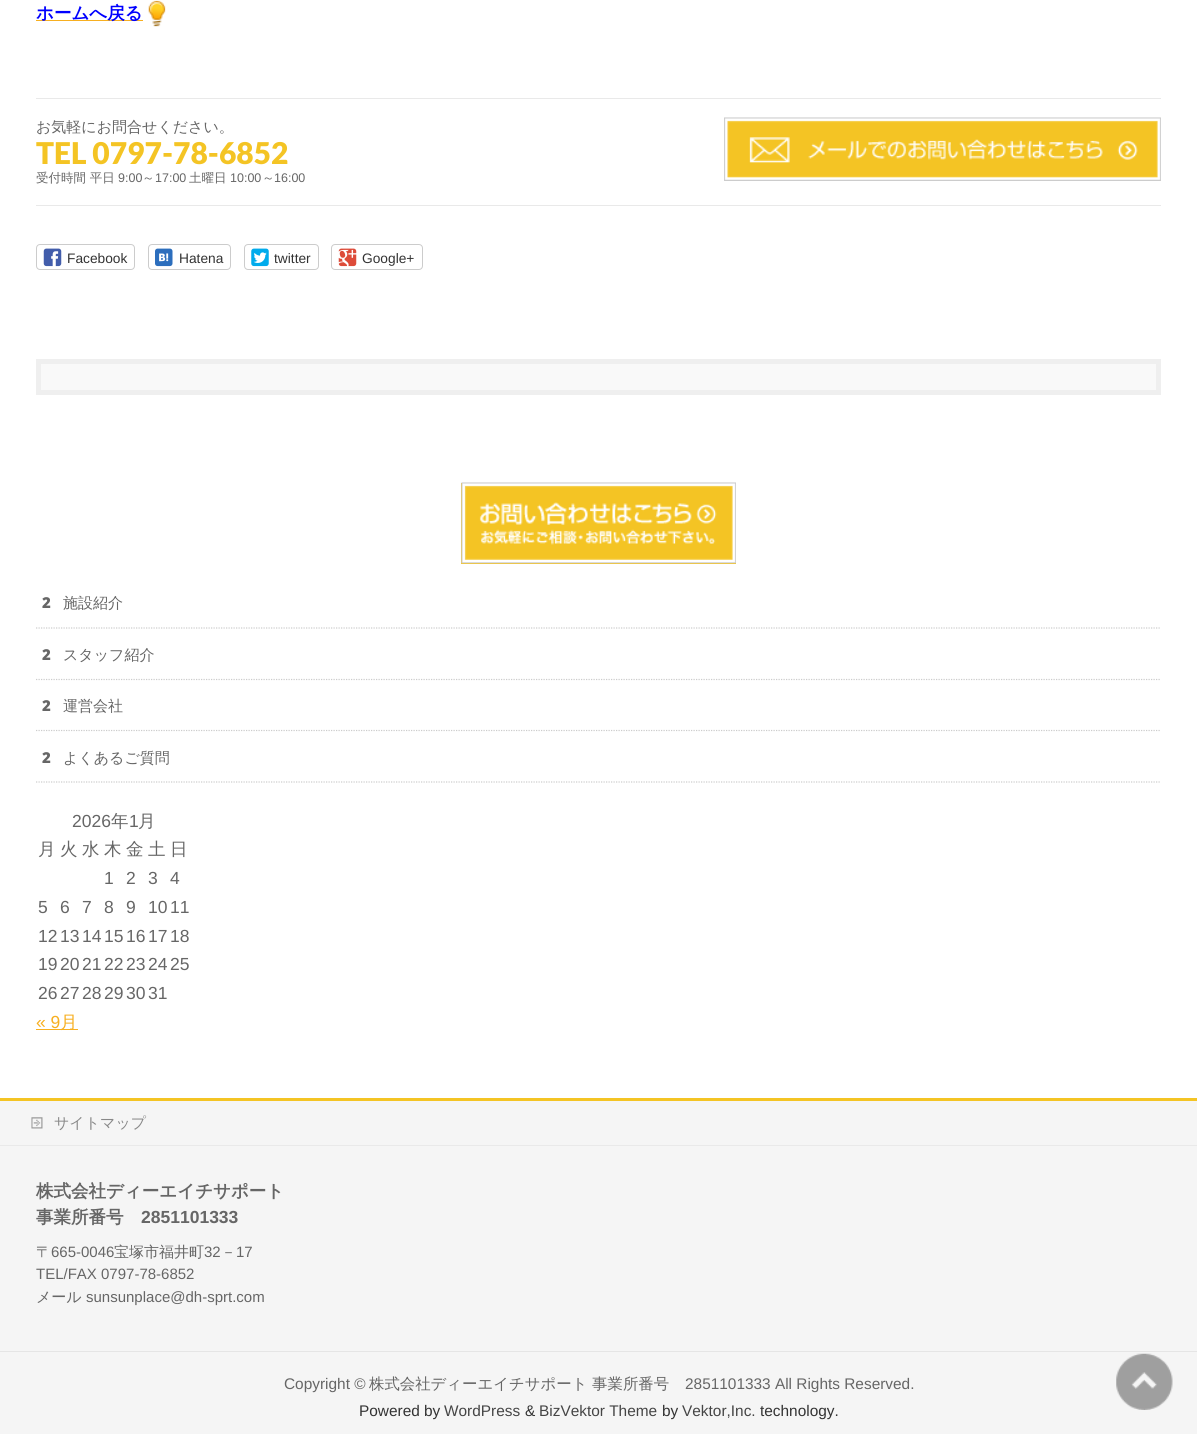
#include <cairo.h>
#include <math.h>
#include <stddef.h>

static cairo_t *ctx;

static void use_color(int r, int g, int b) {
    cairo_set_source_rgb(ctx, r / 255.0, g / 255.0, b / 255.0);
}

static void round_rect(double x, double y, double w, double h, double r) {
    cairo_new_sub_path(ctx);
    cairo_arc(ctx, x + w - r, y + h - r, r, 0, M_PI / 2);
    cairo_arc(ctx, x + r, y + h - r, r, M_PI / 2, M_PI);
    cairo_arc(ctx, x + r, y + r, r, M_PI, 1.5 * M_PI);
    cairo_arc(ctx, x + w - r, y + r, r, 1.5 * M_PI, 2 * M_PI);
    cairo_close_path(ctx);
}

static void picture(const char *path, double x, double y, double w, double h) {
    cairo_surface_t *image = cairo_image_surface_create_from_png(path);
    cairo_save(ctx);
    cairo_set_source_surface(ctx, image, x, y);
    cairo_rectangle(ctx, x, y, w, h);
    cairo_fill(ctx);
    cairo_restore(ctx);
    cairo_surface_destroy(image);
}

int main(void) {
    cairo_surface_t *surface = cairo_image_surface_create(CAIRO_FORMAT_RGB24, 1197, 1434);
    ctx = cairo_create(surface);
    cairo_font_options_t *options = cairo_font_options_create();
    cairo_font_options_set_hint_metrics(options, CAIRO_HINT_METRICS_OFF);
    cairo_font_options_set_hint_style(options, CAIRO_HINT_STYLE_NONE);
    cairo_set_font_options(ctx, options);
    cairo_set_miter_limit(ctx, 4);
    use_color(255, 255, 255);
    cairo_paint(ctx);
    use_color(247, 175, 32);
    cairo_rectangle(ctx, 36, 20, 107, 1);
    cairo_fill(ctx);
    cairo_select_font_face(ctx, "WenQuanYi Zen Hei", CAIRO_FONT_SLANT_NORMAL, CAIRO_FONT_WEIGHT_BOLD);
    cairo_set_font_size(ctx, 17.5);
    use_color(0, 0, 255);
    cairo_move_to(ctx, 36, 19);
    cairo_show_text(ctx, "ホームへ戻る");
    picture("img1.png", 148, 0, 18, 27);
    use_color(233, 233, 233);
    cairo_rectangle(ctx, 36, 98, 1125, 1);
    cairo_fill(ctx);
    cairo_rectangle(ctx, 36, 205, 1125, 1);
    cairo_fill(ctx);
    cairo_select_font_face(ctx, "WenQuanYi Zen Hei Medium", CAIRO_FONT_SLANT_NORMAL, CAIRO_FONT_WEIGHT_NORMAL);
    cairo_set_font_size(ctx, 15);
    use_color(102, 102, 102);
    cairo_move_to(ctx, 36, 132);
    cairo_show_text(ctx, "お気軽にお問合せください。");
    cairo_select_font_face(ctx, "Lato Black", CAIRO_FONT_SLANT_NORMAL, CAIRO_FONT_WEIGHT_NORMAL);
    cairo_set_font_size(ctx, 30);
    use_color(244, 196, 36);
    cairo_move_to(ctx, 36, 164);
    cairo_show_text(ctx, "TEL 0797-78-6852");
    cairo_select_font_face(ctx, "WenQuanYi Zen Hei Medium", CAIRO_FONT_SLANT_NORMAL, CAIRO_FONT_WEIGHT_NORMAL);
    cairo_set_font_size(ctx, 12.5);
    use_color(102, 102, 102);
    cairo_move_to(ctx, 36, 182);
    cairo_show_text(ctx, "受付時間 平日");
    cairo_select_font_face(ctx, "Liberation Sans", CAIRO_FONT_SLANT_NORMAL, CAIRO_FONT_WEIGHT_NORMAL);
    cairo_move_to(ctx, 118, 182);
    cairo_show_text(ctx, "9:00");
    cairo_select_font_face(ctx, "WenQuanYi Zen Hei Medium", CAIRO_FONT_SLANT_NORMAL, CAIRO_FONT_WEIGHT_NORMAL);
    cairo_move_to(ctx, 142, 182);
    cairo_show_text(ctx, "～");
    cairo_select_font_face(ctx, "Liberation Sans", CAIRO_FONT_SLANT_NORMAL, CAIRO_FONT_WEIGHT_NORMAL);
    cairo_move_to(ctx, 155, 182);
    cairo_show_text(ctx, "17:00");
    cairo_select_font_face(ctx, "WenQuanYi Zen Hei Medium", CAIRO_FONT_SLANT_NORMAL, CAIRO_FONT_WEIGHT_NORMAL);
    cairo_move_to(ctx, 189, 182);
    cairo_show_text(ctx, "土曜日");
    cairo_select_font_face(ctx, "Liberation Sans", CAIRO_FONT_SLANT_NORMAL, CAIRO_FONT_WEIGHT_NORMAL);
    cairo_move_to(ctx, 230, 182);
    cairo_show_text(ctx, "10:00");
    cairo_select_font_face(ctx, "WenQuanYi Zen Hei Medium", CAIRO_FONT_SLANT_NORMAL, CAIRO_FONT_WEIGHT_NORMAL);
    cairo_move_to(ctx, 262, 182);
    cairo_show_text(ctx, "～");
    cairo_select_font_face(ctx, "Liberation Sans", CAIRO_FONT_SLANT_NORMAL, CAIRO_FONT_WEIGHT_NORMAL);
    cairo_move_to(ctx, 274, 182);
    cairo_show_text(ctx, "16:00");
    use_color(244, 196, 36);
    cairo_rectangle(ctx, 727, 120, 431, 58);
    cairo_fill(ctx);
    picture("img2.png", 724, 117, 437, 64);
    round_rect(36.5, 244.5, 98, 25, 3.5);
    use_color(204, 204, 204);
    cairo_set_line_width(ctx, 1);
    cairo_stroke(ctx);
    picture("img3.png", 43, 248, 19, 19);
    cairo_set_font_size(ctx, 13.75);
    use_color(51, 51, 51);
    cairo_move_to(ctx, 67, 263);
    cairo_show_text(ctx, "Facebook");
    round_rect(148.5, 244.5, 82, 25, 3.5);
    use_color(204, 204, 204);
    cairo_stroke(ctx);
    picture("img4.png", 155, 248, 18, 19);
    use_color(51, 51, 51);
    cairo_move_to(ctx, 179, 263);
    cairo_show_text(ctx, "Hatena");
    round_rect(244.5, 244.5, 74, 25, 3.5);
    use_color(204, 204, 204);
    cairo_stroke(ctx);
    picture("img5.png", 251, 248, 18, 19);
    use_color(51, 51, 51);
    cairo_move_to(ctx, 274, 263);
    cairo_show_text(ctx, "twitter");
    round_rect(331.5, 244.5, 91, 25, 3.5);
    use_color(204, 204, 204);
    cairo_stroke(ctx);
    picture("img6.png", 338, 248, 19, 19);
    use_color(51, 51, 51);
    cairo_move_to(ctx, 362, 263);
    cairo_show_text(ctx, "Google+");
    use_color(249, 249, 249);
    cairo_rectangle(ctx, 38.5, 361.5, 1120, 31);
    cairo_fill_preserve(ctx);
    use_color(239, 239, 239);
    cairo_set_line_width(ctx, 5);
    cairo_stroke(ctx);
    use_color(244, 196, 36);
    cairo_rectangle(ctx, 461, 483, 275, 81);
    cairo_fill(ctx);
    picture("img7.png", 461, 482, 275, 82);
    cairo_new_path(ctx);
    cairo_move_to(ctx, 36, 628);
    cairo_line_to(ctx, 1161, 628);
    use_color(204, 204, 204);
    cairo_set_line_width(ctx, 1.2);
    cairo_set_dash(ctx, (double[]){1.25, 1.25}, 2, 0);
    cairo_stroke(ctx);
    cairo_select_font_face(ctx, "Noto Sans Black", CAIRO_FONT_SLANT_NORMAL, CAIRO_FONT_WEIGHT_NORMAL);
    cairo_set_font_size(ctx, 15);
    use_color(102, 102, 102);
    cairo_move_to(ctx, 42, 608);
    cairo_show_text(ctx, "2");
    cairo_select_font_face(ctx, "WenQuanYi Zen Hei Medium", CAIRO_FONT_SLANT_NORMAL, CAIRO_FONT_WEIGHT_NORMAL);
    cairo_move_to(ctx, 63, 608);
    cairo_show_text(ctx, "施設紹介");
    cairo_new_path(ctx);
    cairo_move_to(ctx, 36, 679.5);
    cairo_line_to(ctx, 1161, 679.5);
    use_color(204, 204, 204);
    cairo_stroke(ctx);
    cairo_select_font_face(ctx, "Noto Sans Black", CAIRO_FONT_SLANT_NORMAL, CAIRO_FONT_WEIGHT_NORMAL);
    use_color(102, 102, 102);
    cairo_move_to(ctx, 42, 660);
    cairo_show_text(ctx, "2");
    cairo_select_font_face(ctx, "WenQuanYi Zen Hei Medium", CAIRO_FONT_SLANT_NORMAL, CAIRO_FONT_WEIGHT_NORMAL);
    cairo_move_to(ctx, 63, 660);
    cairo_show_text(ctx, "スタッフ紹介");
    cairo_new_path(ctx);
    cairo_move_to(ctx, 36, 730.5);
    cairo_line_to(ctx, 1161, 730.5);
    use_color(204, 204, 204);
    cairo_stroke(ctx);
    cairo_select_font_face(ctx, "Noto Sans Black", CAIRO_FONT_SLANT_NORMAL, CAIRO_FONT_WEIGHT_NORMAL);
    use_color(102, 102, 102);
    cairo_move_to(ctx, 42, 711);
    cairo_show_text(ctx, "2");
    cairo_select_font_face(ctx, "WenQuanYi Zen Hei Medium", CAIRO_FONT_SLANT_NORMAL, CAIRO_FONT_WEIGHT_NORMAL);
    cairo_move_to(ctx, 63, 711);
    cairo_show_text(ctx, "運営会社");
    cairo_new_path(ctx);
    cairo_move_to(ctx, 36, 782);
    cairo_line_to(ctx, 1161, 782);
    use_color(204, 204, 204);
    cairo_stroke(ctx);
    cairo_select_font_face(ctx, "Noto Sans Black", CAIRO_FONT_SLANT_NORMAL, CAIRO_FONT_WEIGHT_NORMAL);
    use_color(102, 102, 102);
    cairo_move_to(ctx, 42, 763);
    cairo_show_text(ctx, "2");
    cairo_select_font_face(ctx, "WenQuanYi Zen Hei Medium", CAIRO_FONT_SLANT_NORMAL, CAIRO_FONT_WEIGHT_NORMAL);
    cairo_move_to(ctx, 63, 763);
    cairo_show_text(ctx, "よくあるご質問");
    cairo_select_font_face(ctx, "Liberation Sans", CAIRO_FONT_SLANT_NORMAL, CAIRO_FONT_WEIGHT_NORMAL);
    cairo_set_font_size(ctx, 17.5);
    cairo_move_to(ctx, 72, 827);
    cairo_show_text(ctx, "2026");
    cairo_select_font_face(ctx, "WenQuanYi Zen Hei Medium", CAIRO_FONT_SLANT_NORMAL, CAIRO_FONT_WEIGHT_NORMAL);
    cairo_move_to(ctx, 111, 827);
    cairo_show_text(ctx, "年");
    cairo_select_font_face(ctx, "Liberation Sans", CAIRO_FONT_SLANT_NORMAL, CAIRO_FONT_WEIGHT_NORMAL);
    cairo_move_to(ctx, 129, 827);
    cairo_show_text(ctx, "1");
    cairo_select_font_face(ctx, "WenQuanYi Zen Hei Medium", CAIRO_FONT_SLANT_NORMAL, CAIRO_FONT_WEIGHT_NORMAL);
    cairo_move_to(ctx, 138, 827);
    cairo_show_text(ctx, "月");
    cairo_move_to(ctx, 38, 855);
    cairo_show_text(ctx, "月");
    cairo_move_to(ctx, 60, 855);
    cairo_show_text(ctx, "火");
    cairo_move_to(ctx, 82, 855);
    cairo_show_text(ctx, "水");
    cairo_move_to(ctx, 104, 855);
    cairo_show_text(ctx, "木");
    cairo_move_to(ctx, 126, 855);
    cairo_show_text(ctx, "金");
    cairo_move_to(ctx, 148, 855);
    cairo_show_text(ctx, "土");
    cairo_move_to(ctx, 170, 855);
    cairo_show_text(ctx, "日");
    cairo_select_font_face(ctx, "Liberation Sans", CAIRO_FONT_SLANT_NORMAL, CAIRO_FONT_WEIGHT_NORMAL);
    cairo_move_to(ctx, 104, 884);
    cairo_show_text(ctx, "1");
    cairo_move_to(ctx, 126, 884);
    cairo_show_text(ctx, "2");
    cairo_move_to(ctx, 148, 884);
    cairo_show_text(ctx, "3");
    cairo_move_to(ctx, 170, 884);
    cairo_show_text(ctx, "4");
    cairo_move_to(ctx, 38, 913);
    cairo_show_text(ctx, "5");
    cairo_move_to(ctx, 60, 913);
    cairo_show_text(ctx, "6");
    cairo_move_to(ctx, 82, 913);
    cairo_show_text(ctx, "7");
    cairo_move_to(ctx, 104, 913);
    cairo_show_text(ctx, "8");
    cairo_move_to(ctx, 126, 913);
    cairo_show_text(ctx, "9");
    cairo_move_to(ctx, 148, 913);
    cairo_show_text(ctx, "10");
    cairo_move_to(ctx, 170, 913);
    cairo_show_text(ctx, "11");
    cairo_move_to(ctx, 38, 942);
    cairo_show_text(ctx, "12");
    cairo_move_to(ctx, 60, 942);
    cairo_show_text(ctx, "13");
    cairo_move_to(ctx, 82, 942);
    cairo_show_text(ctx, "14");
    cairo_move_to(ctx, 104, 942);
    cairo_show_text(ctx, "15");
    cairo_move_to(ctx, 126, 942);
    cairo_show_text(ctx, "16");
    cairo_move_to(ctx, 148, 942);
    cairo_show_text(ctx, "17");
    cairo_move_to(ctx, 170, 942);
    cairo_show_text(ctx, "18");
    cairo_move_to(ctx, 38, 970);
    cairo_show_text(ctx, "19");
    cairo_move_to(ctx, 60, 970);
    cairo_show_text(ctx, "20");
    cairo_move_to(ctx, 82, 970);
    cairo_show_text(ctx, "21");
    cairo_move_to(ctx, 104, 970);
    cairo_show_text(ctx, "22");
    cairo_move_to(ctx, 126, 970);
    cairo_show_text(ctx, "23");
    cairo_move_to(ctx, 148, 970);
    cairo_show_text(ctx, "24");
    cairo_move_to(ctx, 170, 970);
    cairo_show_text(ctx, "25");
    cairo_move_to(ctx, 38, 999);
    cairo_show_text(ctx, "26");
    cairo_move_to(ctx, 60, 999);
    cairo_show_text(ctx, "27");
    cairo_move_to(ctx, 82, 999);
    cairo_show_text(ctx, "28");
    cairo_move_to(ctx, 104, 999);
    cairo_show_text(ctx, "29");
    cairo_move_to(ctx, 126, 999);
    cairo_show_text(ctx, "30");
    cairo_move_to(ctx, 148, 999);
    cairo_show_text(ctx, "31");
    use_color(247, 175, 32);
    cairo_move_to(ctx, 36, 1028);
    cairo_show_text(ctx, "« 9");
    cairo_rectangle(ctx, 36, 1029, 42, 1);
    cairo_fill(ctx);
    cairo_select_font_face(ctx, "WenQuanYi Zen Hei Medium", CAIRO_FONT_SLANT_NORMAL, CAIRO_FONT_WEIGHT_NORMAL);
    cairo_move_to(ctx, 60, 1028);
    cairo_show_text(ctx, "月");
    use_color(245, 245, 245);
    cairo_rectangle(ctx, 0, 1101, 1197, 44);
    cairo_fill(ctx);
    use_color(244, 196, 36);
    cairo_rectangle(ctx, 0, 1098, 1197, 3);
    cairo_fill(ctx);
    use_color(233, 233, 233);
    cairo_rectangle(ctx, 0, 1145, 1197, 1);
    cairo_fill(ctx);
    picture("img8.png", 31, 1117, 12, 12);
    cairo_set_font_size(ctx, 15);
    use_color(136, 136, 136);
    cairo_move_to(ctx, 54, 1128);
    cairo_show_text(ctx, "サイトマップ");
    use_color(245, 245, 245);
    cairo_rectangle(ctx, 0, 1146, 1197, 205);
    cairo_fill(ctx);
    cairo_select_font_face(ctx, "WenQuanYi Zen Hei", CAIRO_FONT_SLANT_NORMAL, CAIRO_FONT_WEIGHT_BOLD);
    cairo_set_font_size(ctx, 17.5);
    use_color(102, 102, 102);
    cairo_move_to(ctx, 36, 1197);
    cairo_show_text(ctx, "株式会社ディーエイチサポート");
    cairo_move_to(ctx, 36, 1223);
    cairo_show_text(ctx, "事業所番号");
    cairo_select_font_face(ctx, "Liberation Sans", CAIRO_FONT_SLANT_NORMAL, CAIRO_FONT_WEIGHT_BOLD);
    cairo_move_to(ctx, 141, 1223);
    cairo_show_text(ctx, "2851101333");
    cairo_select_font_face(ctx, "WenQuanYi Zen Hei Medium", CAIRO_FONT_SLANT_NORMAL, CAIRO_FONT_WEIGHT_NORMAL);
    cairo_set_font_size(ctx, 15);
    cairo_move_to(ctx, 36, 1257);
    cairo_show_text(ctx, "〒");
    cairo_select_font_face(ctx, "Liberation Sans", CAIRO_FONT_SLANT_NORMAL, CAIRO_FONT_WEIGHT_NORMAL);
    cairo_move_to(ctx, 51, 1257);
    cairo_show_text(ctx, "665-0046");
    cairo_select_font_face(ctx, "WenQuanYi Zen Hei Medium", CAIRO_FONT_SLANT_NORMAL, CAIRO_FONT_WEIGHT_NORMAL);
    cairo_move_to(ctx, 114, 1257);
    cairo_show_text(ctx, "宝塚市福井町");
    cairo_select_font_face(ctx, "Liberation Sans", CAIRO_FONT_SLANT_NORMAL, CAIRO_FONT_WEIGHT_NORMAL);
    cairo_move_to(ctx, 204, 1257);
    cairo_show_text(ctx, "32");
    cairo_select_font_face(ctx, "WenQuanYi Zen Hei Medium", CAIRO_FONT_SLANT_NORMAL, CAIRO_FONT_WEIGHT_NORMAL);
    cairo_move_to(ctx, 221, 1257);
    cairo_show_text(ctx, "－");
    cairo_select_font_face(ctx, "Liberation Sans", CAIRO_FONT_SLANT_NORMAL, CAIRO_FONT_WEIGHT_NORMAL);
    cairo_move_to(ctx, 236, 1257);
    cairo_show_text(ctx, "17");
    cairo_move_to(ctx, 36, 1279);
    cairo_show_text(ctx, "TEL/FAX 0797-78-6852");
    cairo_select_font_face(ctx, "WenQuanYi Zen Hei Medium", CAIRO_FONT_SLANT_NORMAL, CAIRO_FONT_WEIGHT_NORMAL);
    cairo_move_to(ctx, 36, 1302);
    cairo_show_text(ctx, "メール");
    cairo_select_font_face(ctx, "Liberation Sans", CAIRO_FONT_SLANT_NORMAL, CAIRO_FONT_WEIGHT_NORMAL);
    cairo_move_to(ctx, 86, 1302);
    cairo_show_text(ctx, "sunsunplace@dh-sprt.com");
    use_color(245, 245, 245);
    cairo_rectangle(ctx, 0, 1352, 1197, 82);
    cairo_fill(ctx);
    use_color(229, 229, 229);
    cairo_rectangle(ctx, 0, 1351, 1197, 1);
    cairo_fill(ctx);
    cairo_set_font_size(ctx, 15.4);
    use_color(102, 102, 102);
    cairo_move_to(ctx, 284, 1389);
    cairo_show_text(ctx, "Copyright ©");
    cairo_select_font_face(ctx, "WenQuanYi Zen Hei Medium", CAIRO_FONT_SLANT_NORMAL, CAIRO_FONT_WEIGHT_NORMAL);
    cairo_move_to(ctx, 369, 1389);
    cairo_show_text(ctx, "株式会社ディーエイチサポート 事業所番号");
    cairo_select_font_face(ctx, "Liberation Sans", CAIRO_FONT_SLANT_NORMAL, CAIRO_FONT_WEIGHT_NORMAL);
    cairo_move_to(ctx, 685, 1389);
    cairo_show_text(ctx, "2851101333 All Rights Reserved.");
    use_color(51, 51, 51);
    cairo_move_to(ctx, 359, 1416);
    cairo_show_text(ctx, "Powered by");
    use_color(69, 69, 69);
    cairo_move_to(ctx, 444, 1416);
    cairo_show_text(ctx, "WordPress");
    use_color(51, 51, 51);
    cairo_move_to(ctx, 525, 1416);
    cairo_show_text(ctx, "&");
    use_color(69, 69, 69);
    cairo_move_to(ctx, 539, 1416);
    cairo_show_text(ctx, "BizVektor Theme");
    use_color(51, 51, 51);
    cairo_move_to(ctx, 662, 1416);
    cairo_show_text(ctx, "by");
    use_color(69, 69, 69);
    cairo_move_to(ctx, 682, 1416);
    cairo_show_text(ctx, "Vektor,Inc.");
    use_color(51, 51, 51);
    cairo_move_to(ctx, 760, 1416);
    cairo_show_text(ctx, "technology.");
    picture("img9.png", 1116, 1353, 57, 57);
    cairo_surface_write_to_png(surface, "result.png");
    cairo_font_options_destroy(options);
    cairo_destroy(ctx);
    cairo_surface_destroy(surface);
    return 0;
}
